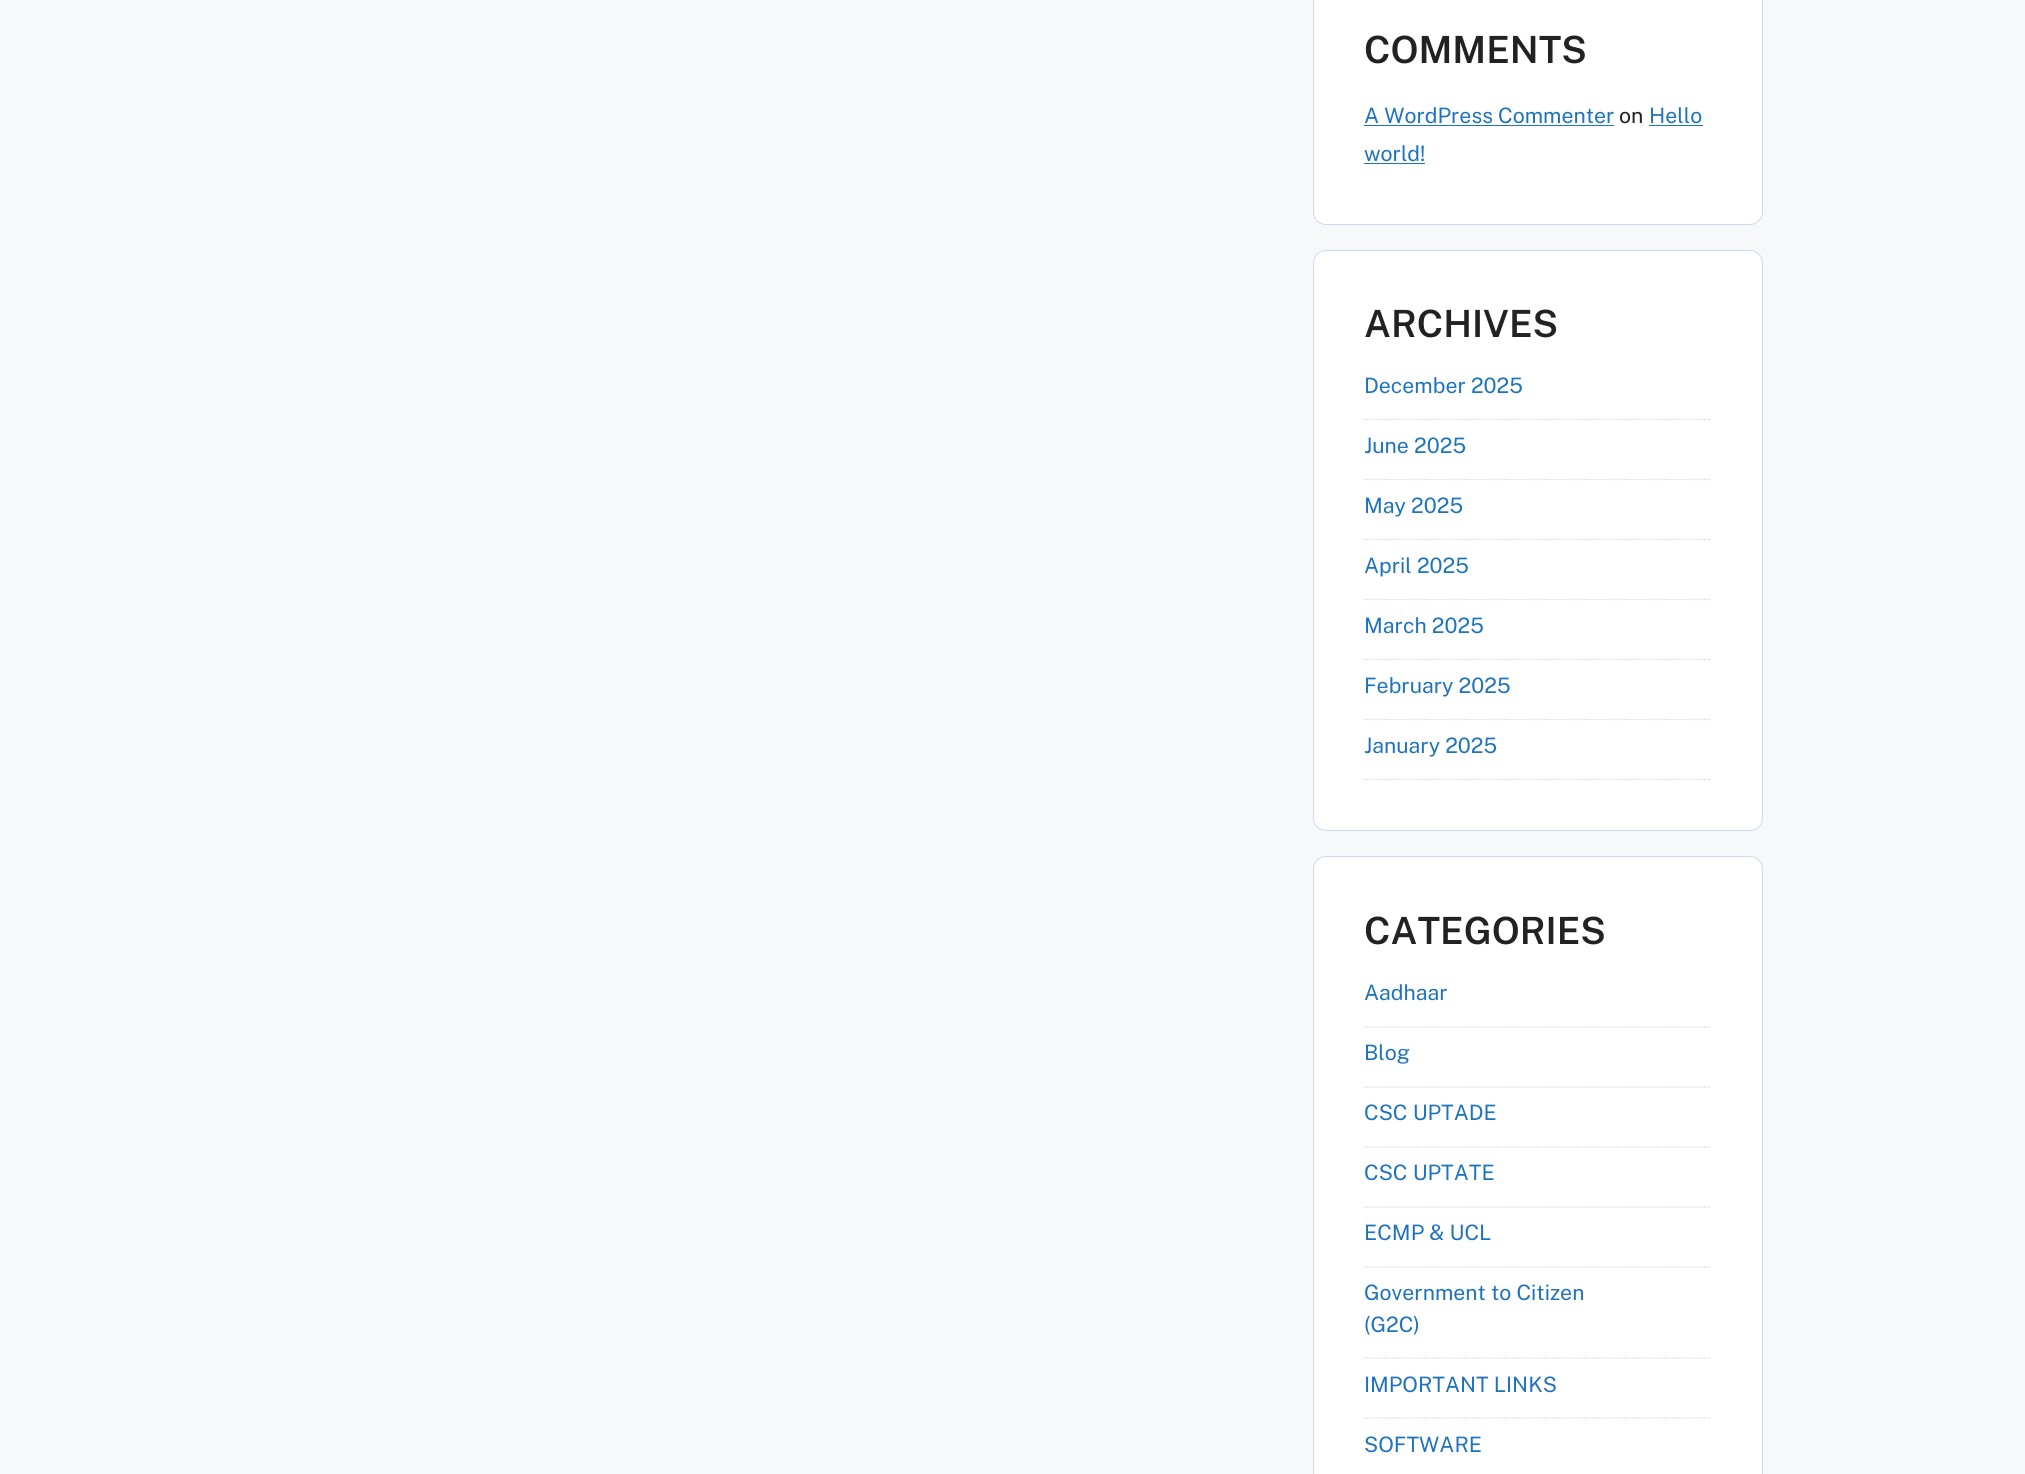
#include <cairo.h>
#include <math.h>
#include <stddef.h>

static cairo_t *ctx;

static void use_color(int r, int g, int b) {
    cairo_set_source_rgb(ctx, r / 255.0, g / 255.0, b / 255.0);
}

static void round_rect(double x, double y, double w, double h, double r) {
    cairo_new_sub_path(ctx);
    cairo_arc(ctx, x + w - r, y + h - r, r, 0, M_PI / 2);
    cairo_arc(ctx, x + r, y + h - r, r, M_PI / 2, M_PI);
    cairo_arc(ctx, x + r, y + r, r, M_PI, 1.5 * M_PI);
    cairo_arc(ctx, x + w - r, y + r, r, 1.5 * M_PI, 2 * M_PI);
    cairo_close_path(ctx);
}

int main(void) {
    cairo_surface_t *surface = cairo_image_surface_create(CAIRO_FORMAT_RGB24, 2025, 1474);
    ctx = cairo_create(surface);
    cairo_font_options_t *options = cairo_font_options_create();
    cairo_font_options_set_hint_metrics(options, CAIRO_HINT_METRICS_OFF);
    cairo_font_options_set_hint_style(options, CAIRO_HINT_STYLE_NONE);
    cairo_set_font_options(ctx, options);
    cairo_set_miter_limit(ctx, 4);
    use_color(247, 248, 249);
    cairo_paint(ctx);
    use_color(255, 255, 255);
    round_rect(1313.5, -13.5, 449, 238, 12.5);
    cairo_fill_preserve(ctx);
    use_color(205, 217, 236);
    cairo_set_line_width(ctx, 1);
    cairo_stroke(ctx);
    cairo_select_font_face(ctx, "Public Sans SemiBold", CAIRO_FONT_SLANT_NORMAL, CAIRO_FONT_WEIGHT_NORMAL);
    cairo_set_font_size(ctx, 37.5);
    use_color(34, 34, 34);
    cairo_move_to(ctx, 1364, 63);
    cairo_show_text(ctx, "COMMENTS");
    cairo_select_font_face(ctx, "Public Sans", CAIRO_FONT_SLANT_NORMAL, CAIRO_FONT_WEIGHT_NORMAL);
    cairo_set_font_size(ctx, 21.25);
    use_color(30, 115, 190);
    cairo_move_to(ctx, 1364, 123);
    cairo_show_text(ctx, "A WordPress Commenter");
    cairo_rectangle(ctx, 1364, 125, 250, 1);
    cairo_fill(ctx);
    use_color(34, 34, 34);
    cairo_move_to(ctx, 1619, 123);
    cairo_show_text(ctx, "on");
    use_color(30, 115, 190);
    cairo_move_to(ctx, 1649, 123);
    cairo_show_text(ctx, "Hello");
    cairo_rectangle(ctx, 1649, 125, 54, 1);
    cairo_fill(ctx);
    cairo_move_to(ctx, 1364, 161);
    cairo_show_text(ctx, "world!");
    cairo_rectangle(ctx, 1364, 163, 61, 1);
    cairo_fill(ctx);
    use_color(255, 255, 255);
    round_rect(1313.5, 250.5, 449, 580, 12.5);
    cairo_fill_preserve(ctx);
    use_color(205, 217, 236);
    cairo_stroke(ctx);
    cairo_select_font_face(ctx, "Public Sans SemiBold", CAIRO_FONT_SLANT_NORMAL, CAIRO_FONT_WEIGHT_NORMAL);
    cairo_set_font_size(ctx, 37.5);
    use_color(34, 34, 34);
    cairo_move_to(ctx, 1364, 337);
    cairo_show_text(ctx, "ARCHIVES");
    cairo_new_path(ctx);
    cairo_move_to(ctx, 1364, 419.5);
    cairo_line_to(ctx, 1711, 419.5);
    use_color(205, 217, 236);
    cairo_set_line_width(ctx, 1.2);
    cairo_set_dash(ctx, (double[]){1.25, 1.25}, 2, 0);
    cairo_stroke(ctx);
    cairo_select_font_face(ctx, "Public Sans", CAIRO_FONT_SLANT_NORMAL, CAIRO_FONT_WEIGHT_NORMAL);
    cairo_set_font_size(ctx, 21.25);
    use_color(30, 115, 190);
    cairo_move_to(ctx, 1364, 393);
    cairo_show_text(ctx, "December 2025");
    cairo_new_path(ctx);
    cairo_move_to(ctx, 1364, 479.5);
    cairo_line_to(ctx, 1711, 479.5);
    use_color(205, 217, 236);
    cairo_stroke(ctx);
    use_color(30, 115, 190);
    cairo_move_to(ctx, 1364, 453);
    cairo_show_text(ctx, "June 2025");
    cairo_new_path(ctx);
    cairo_move_to(ctx, 1364, 539.5);
    cairo_line_to(ctx, 1711, 539.5);
    use_color(205, 217, 236);
    cairo_stroke(ctx);
    use_color(30, 115, 190);
    cairo_move_to(ctx, 1364, 513);
    cairo_show_text(ctx, "May 2025");
    cairo_new_path(ctx);
    cairo_move_to(ctx, 1364, 599.5);
    cairo_line_to(ctx, 1711, 599.5);
    use_color(205, 217, 236);
    cairo_stroke(ctx);
    use_color(30, 115, 190);
    cairo_move_to(ctx, 1364, 573);
    cairo_show_text(ctx, "April 2025");
    cairo_new_path(ctx);
    cairo_move_to(ctx, 1364, 659.5);
    cairo_line_to(ctx, 1711, 659.5);
    use_color(205, 217, 236);
    cairo_stroke(ctx);
    use_color(30, 115, 190);
    cairo_move_to(ctx, 1364, 633);
    cairo_show_text(ctx, "March 2025");
    cairo_new_path(ctx);
    cairo_move_to(ctx, 1364, 719.5);
    cairo_line_to(ctx, 1711, 719.5);
    use_color(205, 217, 236);
    cairo_stroke(ctx);
    use_color(30, 115, 190);
    cairo_move_to(ctx, 1364, 693);
    cairo_show_text(ctx, "February 2025");
    cairo_new_path(ctx);
    cairo_move_to(ctx, 1364, 779.5);
    cairo_line_to(ctx, 1711, 779.5);
    use_color(205, 217, 236);
    cairo_stroke(ctx);
    use_color(30, 115, 190);
    cairo_move_to(ctx, 1364, 753);
    cairo_show_text(ctx, "January 2025");
    use_color(255, 255, 255);
    round_rect(1313.5, 856.5, 449, 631, 12.5);
    cairo_fill_preserve(ctx);
    use_color(205, 217, 236);
    cairo_set_line_width(ctx, 1);
    cairo_set_dash(ctx, NULL, 0, 0);
    cairo_stroke(ctx);
    cairo_select_font_face(ctx, "Public Sans SemiBold", CAIRO_FONT_SLANT_NORMAL, CAIRO_FONT_WEIGHT_NORMAL);
    cairo_set_font_size(ctx, 37.5);
    use_color(34, 34, 34);
    cairo_move_to(ctx, 1364, 944);
    cairo_show_text(ctx, "CATEGORIES");
    cairo_new_path(ctx);
    cairo_move_to(ctx, 1364, 1027);
    cairo_line_to(ctx, 1711, 1027);
    use_color(205, 217, 236);
    cairo_set_line_width(ctx, 1.2);
    cairo_set_dash(ctx, (double[]){1.25, 1.25}, 2, 0);
    cairo_stroke(ctx);
    cairo_select_font_face(ctx, "Public Sans", CAIRO_FONT_SLANT_NORMAL, CAIRO_FONT_WEIGHT_NORMAL);
    cairo_set_font_size(ctx, 21.25);
    use_color(30, 115, 190);
    cairo_move_to(ctx, 1364, 1000);
    cairo_show_text(ctx, "Aadhaar");
    cairo_new_path(ctx);
    cairo_move_to(ctx, 1364, 1087);
    cairo_line_to(ctx, 1711, 1087);
    use_color(205, 217, 236);
    cairo_stroke(ctx);
    use_color(30, 115, 190);
    cairo_move_to(ctx, 1364, 1060);
    cairo_show_text(ctx, "Blog");
    cairo_new_path(ctx);
    cairo_move_to(ctx, 1364, 1147);
    cairo_line_to(ctx, 1711, 1147);
    use_color(205, 217, 236);
    cairo_stroke(ctx);
    use_color(30, 115, 190);
    cairo_move_to(ctx, 1364, 1120);
    cairo_show_text(ctx, "CSC UPTADE");
    cairo_new_path(ctx);
    cairo_move_to(ctx, 1364, 1207);
    cairo_line_to(ctx, 1711, 1207);
    use_color(205, 217, 236);
    cairo_stroke(ctx);
    use_color(30, 115, 190);
    cairo_move_to(ctx, 1364, 1180);
    cairo_show_text(ctx, "CSC UPTATE");
    cairo_new_path(ctx);
    cairo_move_to(ctx, 1364, 1267);
    cairo_line_to(ctx, 1711, 1267);
    use_color(205, 217, 236);
    cairo_stroke(ctx);
    use_color(30, 115, 190);
    cairo_move_to(ctx, 1364, 1240);
    cairo_show_text(ctx, "ECMP & UCL");
    cairo_new_path(ctx);
    cairo_move_to(ctx, 1364, 1358);
    cairo_line_to(ctx, 1711, 1358);
    use_color(205, 217, 236);
    cairo_stroke(ctx);
    use_color(30, 115, 190);
    cairo_move_to(ctx, 1364, 1300);
    cairo_show_text(ctx, "Government to Citizen");
    cairo_move_to(ctx, 1364, 1332);
    cairo_show_text(ctx, "(G2C)");
    cairo_new_path(ctx);
    cairo_move_to(ctx, 1364, 1418);
    cairo_line_to(ctx, 1711, 1418);
    use_color(205, 217, 236);
    cairo_stroke(ctx);
    use_color(30, 115, 190);
    cairo_move_to(ctx, 1364, 1392);
    cairo_show_text(ctx, "IMPORTANT LINKS");
    cairo_move_to(ctx, 1364, 1452);
    cairo_show_text(ctx, "SOFTWARE");
    cairo_surface_write_to_png(surface, "result.png");
    cairo_font_options_destroy(options);
    cairo_destroy(ctx);
    cairo_surface_destroy(surface);
    return 0;
}
